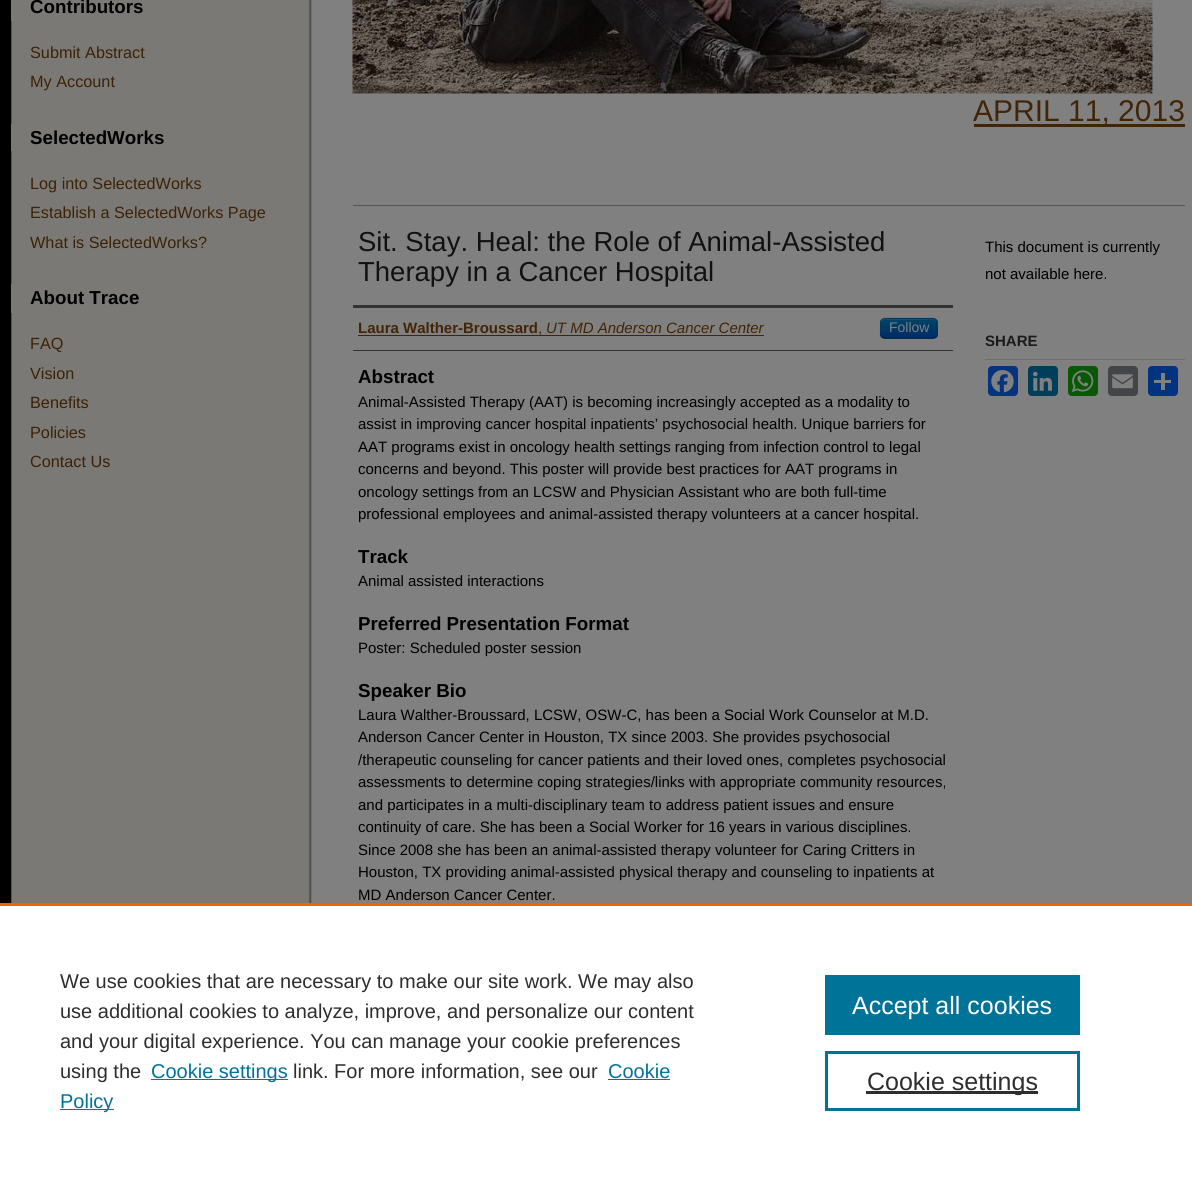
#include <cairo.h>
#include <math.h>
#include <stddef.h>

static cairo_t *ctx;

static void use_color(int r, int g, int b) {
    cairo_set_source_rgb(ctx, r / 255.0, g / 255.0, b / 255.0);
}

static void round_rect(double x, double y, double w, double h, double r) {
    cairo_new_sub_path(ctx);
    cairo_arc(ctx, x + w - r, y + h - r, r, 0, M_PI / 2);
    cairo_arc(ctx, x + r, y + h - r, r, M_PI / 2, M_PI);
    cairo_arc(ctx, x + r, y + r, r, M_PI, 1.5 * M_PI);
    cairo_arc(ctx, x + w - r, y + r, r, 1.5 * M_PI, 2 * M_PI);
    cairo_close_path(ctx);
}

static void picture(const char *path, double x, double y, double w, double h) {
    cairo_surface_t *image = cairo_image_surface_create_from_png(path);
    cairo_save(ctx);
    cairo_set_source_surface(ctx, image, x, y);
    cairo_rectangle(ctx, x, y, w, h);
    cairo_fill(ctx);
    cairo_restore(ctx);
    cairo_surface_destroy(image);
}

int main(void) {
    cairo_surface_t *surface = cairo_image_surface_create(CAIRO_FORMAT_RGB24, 1192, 1177);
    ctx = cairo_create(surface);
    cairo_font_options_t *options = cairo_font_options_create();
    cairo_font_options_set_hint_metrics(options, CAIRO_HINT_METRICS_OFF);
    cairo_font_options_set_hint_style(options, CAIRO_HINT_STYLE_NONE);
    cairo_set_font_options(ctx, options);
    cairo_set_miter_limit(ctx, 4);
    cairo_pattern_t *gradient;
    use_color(255, 255, 255);
    cairo_paint(ctx);
    picture("img1.png", 0, 0, 1192, 903);
    use_color(122, 121, 119);
    cairo_rectangle(ctx, 11, 0, 1, 21);
    cairo_fill(ctx);
    cairo_select_font_face(ctx, "Liberation Sans", CAIRO_FONT_SLANT_NORMAL, CAIRO_FONT_WEIGHT_BOLD);
    cairo_set_font_size(ctx, 18.75);
    use_color(0, 0, 0);
    cairo_move_to(ctx, 30, 13);
    cairo_show_text(ctx, "Contributors");
    cairo_select_font_face(ctx, "Liberation Sans", CAIRO_FONT_SLANT_NORMAL, CAIRO_FONT_WEIGHT_NORMAL);
    cairo_set_font_size(ctx, 16.25);
    use_color(60, 34, 6);
    cairo_move_to(ctx, 30, 58);
    cairo_show_text(ctx, "Submit Abstract");
    cairo_move_to(ctx, 30, 87);
    cairo_show_text(ctx, "My Account");
    use_color(122, 121, 119);
    cairo_rectangle(ctx, 11, 124, 1, 27);
    cairo_fill(ctx);
    cairo_select_font_face(ctx, "Liberation Sans", CAIRO_FONT_SLANT_NORMAL, CAIRO_FONT_WEIGHT_BOLD);
    cairo_set_font_size(ctx, 18.75);
    use_color(0, 0, 0);
    cairo_move_to(ctx, 30, 144);
    cairo_show_text(ctx, "SelectedWorks");
    cairo_select_font_face(ctx, "Liberation Sans", CAIRO_FONT_SLANT_NORMAL, CAIRO_FONT_WEIGHT_NORMAL);
    cairo_set_font_size(ctx, 16.25);
    use_color(60, 34, 6);
    cairo_move_to(ctx, 30, 189);
    cairo_show_text(ctx, "Log into SelectedWorks");
    cairo_move_to(ctx, 30, 218);
    cairo_show_text(ctx, "Establish a SelectedWorks Page");
    cairo_move_to(ctx, 30, 248);
    cairo_show_text(ctx, "What is SelectedWorks?");
    use_color(122, 121, 119);
    cairo_rectangle(ctx, 11, 284, 1, 29);
    cairo_fill(ctx);
    cairo_select_font_face(ctx, "Liberation Sans", CAIRO_FONT_SLANT_NORMAL, CAIRO_FONT_WEIGHT_BOLD);
    cairo_set_font_size(ctx, 18.75);
    use_color(0, 0, 0);
    cairo_move_to(ctx, 30, 304);
    cairo_show_text(ctx, "About Trace");
    cairo_select_font_face(ctx, "Liberation Sans", CAIRO_FONT_SLANT_NORMAL, CAIRO_FONT_WEIGHT_NORMAL);
    cairo_set_font_size(ctx, 16.25);
    use_color(60, 34, 6);
    cairo_move_to(ctx, 30, 349);
    cairo_show_text(ctx, "FAQ");
    cairo_move_to(ctx, 30, 379);
    cairo_show_text(ctx, "Vision");
    cairo_move_to(ctx, 30, 408);
    cairo_show_text(ctx, "Benefits");
    cairo_move_to(ctx, 30, 438);
    cairo_show_text(ctx, "Policies");
    cairo_move_to(ctx, 30, 467);
    cairo_show_text(ctx, "Contact Us");
    picture("img2.png", 352, 0, 801, 94);
    use_color(66, 37, 7);
    cairo_rectangle(ctx, 974, 124, 211, 3);
    cairo_fill(ctx);
    cairo_set_font_size(ctx, 30);
    cairo_move_to(ctx, 973, 121);
    cairo_show_text(ctx, "APRIL 11, 2013");
    use_color(85, 85, 85);
    cairo_rectangle(ctx, 353, 205, 832, 1);
    cairo_fill(ctx);
    cairo_set_font_size(ctx, 27.5);
    use_color(17, 17, 17);
    cairo_move_to(ctx, 358, 251);
    cairo_show_text(ctx, "Sit. Stay. Heal: the Role of Animal-Assisted");
    cairo_move_to(ctx, 358, 281);
    cairo_show_text(ctx, "Therapy in a Cancer Hospital");
    use_color(51, 51, 51);
    cairo_rectangle(ctx, 353, 305, 600, 3);
    cairo_fill(ctx);
    cairo_rectangle(ctx, 353, 350, 600, 1);
    cairo_fill(ctx);
    cairo_select_font_face(ctx, "Liberation Sans", CAIRO_FONT_SLANT_NORMAL, CAIRO_FONT_WEIGHT_BOLD);
    cairo_set_font_size(ctx, 15);
    use_color(66, 37, 7);
    cairo_move_to(ctx, 358, 333);
    cairo_show_text(ctx, "Laura Walther-Broussard");
    cairo_rectangle(ctx, 358, 335, 406, 1);
    cairo_fill(ctx);
    cairo_select_font_face(ctx, "Liberation Sans", CAIRO_FONT_SLANT_NORMAL, CAIRO_FONT_WEIGHT_NORMAL);
    cairo_move_to(ctx, 538, 333);
    cairo_show_text(ctx, ",");
    cairo_select_font_face(ctx, "Liberation Sans", CAIRO_FONT_SLANT_ITALIC, CAIRO_FONT_WEIGHT_NORMAL);
    cairo_move_to(ctx, 546, 333);
    cairo_show_text(ctx, "UT MD Anderson Cancer Center");
    use_color(0, 58, 102);
    round_rect(880, 318, 58, 21, 5);
    cairo_fill(ctx);
    cairo_save(ctx);
    round_rect(880, 318, 58, 21, 5);
    cairo_clip(ctx);
    gradient = cairo_pattern_create_linear(909, 319, 909, 338);
    cairo_pattern_add_color_stop_rgba(gradient, 0, 0, 0.267, 0.4, 1);
    cairo_pattern_add_color_stop_rgba(gradient, 1, 0, 0.169, 0.4, 1);
    cairo_set_source(ctx, gradient);
    cairo_pattern_destroy(gradient);
    cairo_rectangle(ctx, 880, 319, 58, 19);
    cairo_fill(ctx);
    cairo_restore(ctx);
    cairo_set_source_rgba(ctx, 0.502, 0.502, 0.502, 0.2);
    cairo_new_path(ctx);
    cairo_move_to(ctx, 885, 320);
    cairo_line_to(ctx, 927, 320);
    cairo_curve_to(ctx, 933, 319, 936, 319, 936, 326);
    cairo_line_to(ctx, 936, 335);
    cairo_line_to(ctx, 936, 327);
    cairo_curve_to(ctx, 936, 317, 934, 319, 924, 319);
    cairo_line_to(ctx, 893, 319);
    cairo_curve_to(ctx, 883, 319, 881, 317, 881, 327);
    cairo_line_to(ctx, 881, 336);
    cairo_curve_to(ctx, 881, 332, 879, 320, 885, 320);
    cairo_close_path(ctx);
    cairo_fill(ctx);
    cairo_new_path(ctx);
    cairo_move_to(ctx, 935.5, 337);
    cairo_curve_to(ctx, 935, 337.5, 933.5, 338, 932.5, 338);
    cairo_line_to(ctx, 885, 338);
    cairo_curve_to(ctx, 884, 338, 882.5, 337.5, 882, 337);
    cairo_set_source_rgba(ctx, 0, 0, 0, 0.25);
    cairo_set_line_width(ctx, 1.2);
    cairo_stroke(ctx);
    cairo_new_path(ctx);
    cairo_move_to(ctx, 882, 337);
    cairo_curve_to(ctx, 879.5, 334.5, 880.5, 331, 880.5, 328);
    cairo_curve_to(ctx, 880.5, 317, 881.5, 318, 893, 318);
    cairo_line_to(ctx, 924.5, 318);
    cairo_curve_to(ctx, 936, 318, 937, 317, 937, 328);
    cairo_curve_to(ctx, 937, 331, 938, 334.5, 935.5, 337);
    cairo_set_source_rgba(ctx, 0, 0, 0, 0.1);
    cairo_stroke(ctx);
    cairo_select_font_face(ctx, "Liberation Sans", CAIRO_FONT_SLANT_NORMAL, CAIRO_FONT_WEIGHT_NORMAL);
    cairo_set_font_size(ctx, 14);
    use_color(128, 128, 128);
    cairo_move_to(ctx, 889, 332);
    cairo_show_text(ctx, "Follow");
    cairo_select_font_face(ctx, "Liberation Sans", CAIRO_FONT_SLANT_NORMAL, CAIRO_FONT_WEIGHT_BOLD);
    cairo_set_font_size(ctx, 18.75);
    use_color(0, 0, 0);
    cairo_move_to(ctx, 358, 383);
    cairo_show_text(ctx, "Abstract");
    cairo_select_font_face(ctx, "Liberation Sans", CAIRO_FONT_SLANT_NORMAL, CAIRO_FONT_WEIGHT_NORMAL);
    cairo_set_font_size(ctx, 15);
    cairo_move_to(ctx, 358, 407);
    cairo_show_text(ctx, "Animal-Assisted Therapy (AAT) is becoming increasingly accepted as a modality to");
    cairo_move_to(ctx, 358, 429);
    cairo_show_text(ctx, "assist in improving cancer hospital inpatients’ psychosocial health. Unique barriers for");
    cairo_move_to(ctx, 358, 452);
    cairo_show_text(ctx, "AAT programs exist in oncology health settings ranging from infection control to legal");
    cairo_move_to(ctx, 358, 474);
    cairo_show_text(ctx, "concerns and beyond. This poster will provide best practices for AAT programs in");
    cairo_move_to(ctx, 358, 497);
    cairo_show_text(ctx, "oncology settings from an LCSW and Physician Assistant who are both full-time");
    cairo_move_to(ctx, 358, 519);
    cairo_show_text(ctx, "professional employees and animal-assisted therapy volunteers at a cancer hospital.");
    cairo_select_font_face(ctx, "Liberation Sans", CAIRO_FONT_SLANT_NORMAL, CAIRO_FONT_WEIGHT_BOLD);
    cairo_set_font_size(ctx, 18.75);
    cairo_move_to(ctx, 358, 563);
    cairo_show_text(ctx, "Track");
    cairo_select_font_face(ctx, "Liberation Sans", CAIRO_FONT_SLANT_NORMAL, CAIRO_FONT_WEIGHT_NORMAL);
    cairo_set_font_size(ctx, 15);
    cairo_move_to(ctx, 358, 586);
    cairo_show_text(ctx, "Animal assisted interactions");
    cairo_select_font_face(ctx, "Liberation Sans", CAIRO_FONT_SLANT_NORMAL, CAIRO_FONT_WEIGHT_BOLD);
    cairo_set_font_size(ctx, 18.75);
    cairo_move_to(ctx, 358, 630);
    cairo_show_text(ctx, "Preferred Presentation Format");
    cairo_select_font_face(ctx, "Liberation Sans", CAIRO_FONT_SLANT_NORMAL, CAIRO_FONT_WEIGHT_NORMAL);
    cairo_set_font_size(ctx, 15);
    cairo_move_to(ctx, 358, 653);
    cairo_show_text(ctx, "Poster: Scheduled poster session");
    cairo_select_font_face(ctx, "Liberation Sans", CAIRO_FONT_SLANT_NORMAL, CAIRO_FONT_WEIGHT_BOLD);
    cairo_set_font_size(ctx, 18.75);
    cairo_move_to(ctx, 358, 697);
    cairo_show_text(ctx, "Speaker Bio");
    cairo_select_font_face(ctx, "Liberation Sans", CAIRO_FONT_SLANT_NORMAL, CAIRO_FONT_WEIGHT_NORMAL);
    cairo_set_font_size(ctx, 15);
    cairo_move_to(ctx, 358, 720);
    cairo_show_text(ctx, "Laura Walther-Broussard, LCSW, OSW-C, has been a Social Work Counselor at M.D.");
    cairo_move_to(ctx, 358, 742);
    cairo_show_text(ctx, "Anderson Cancer Center in Houston, TX since 2003. She provides psychosocial");
    cairo_move_to(ctx, 358, 765);
    cairo_show_text(ctx, "/therapeutic counseling for cancer patients and their loved ones, completes psychosocial");
    cairo_move_to(ctx, 358, 787);
    cairo_show_text(ctx, "assessments to determine coping strategies/links with appropriate community resources,");
    cairo_move_to(ctx, 358, 810);
    cairo_show_text(ctx, "and participates in a multi-disciplinary team to address patient issues and ensure");
    cairo_move_to(ctx, 358, 832);
    cairo_show_text(ctx, "continuity of care. She has been a Social Worker for 16 years in various disciplines.");
    cairo_move_to(ctx, 358, 855);
    cairo_show_text(ctx, "Since 2008 she has been an animal-assisted therapy volunteer for Caring Critters in");
    cairo_move_to(ctx, 358, 877);
    cairo_show_text(ctx, "Houston, TX providing animal-assisted physical therapy and counseling to inpatients at");
    cairo_move_to(ctx, 358, 900);
    cairo_show_text(ctx, "MD Anderson Cancer Center.");
    cairo_move_to(ctx, 985, 252);
    cairo_show_text(ctx, "This document is currently");
    cairo_move_to(ctx, 985, 279);
    cairo_show_text(ctx, "not available here.");
    use_color(111, 111, 111);
    cairo_rectangle(ctx, 985, 359, 200, 1);
    cairo_fill(ctx);
    cairo_select_font_face(ctx, "Liberation Sans", CAIRO_FONT_SLANT_NORMAL, CAIRO_FONT_WEIGHT_BOLD);
    use_color(26, 26, 26);
    cairo_move_to(ctx, 985, 346);
    cairo_show_text(ctx, "SHARE");
    use_color(4, 51, 128);
    round_rect(988, 366, 30, 30, 4);
    cairo_fill(ctx);
    picture("img3.png", 991, 370, 23, 23);
    use_color(0, 62, 91);
    round_rect(1028, 366, 30, 30, 4);
    cairo_fill(ctx);
    picture("img4.png", 1033, 371, 19, 20);
    use_color(9, 88, 5);
    round_rect(1068, 366, 30, 30, 4);
    cairo_fill(ctx);
    picture("img5.png", 1071, 370, 23, 22);
    use_color(68, 69, 72);
    round_rect(1108, 366, 30, 30, 4);
    cairo_fill(ctx);
    picture("img6.png", 1112, 374, 21, 15);
    use_color(1, 51, 128);
    round_rect(1148, 366, 30, 30, 4);
    cairo_fill(ctx);
    use_color(128, 128, 128);
    cairo_rectangle(ctx, 1161, 373, 4, 17);
    cairo_fill(ctx);
    cairo_rectangle(ctx, 1154, 380, 17, 3);
    cairo_fill(ctx);
    use_color(235, 101, 0);
    cairo_rectangle(ctx, 0, 903, 1192, 3);
    cairo_fill(ctx);
    cairo_select_font_face(ctx, "Liberation Sans", CAIRO_FONT_SLANT_NORMAL, CAIRO_FONT_WEIGHT_NORMAL);
    cairo_set_font_size(ctx, 20);
    use_color(46, 46, 46);
    cairo_move_to(ctx, 60, 988);
    cairo_show_text(ctx, "We use cookies that are necessary to make our site work. We may also");
    cairo_move_to(ctx, 60, 1018);
    cairo_show_text(ctx, "use additional cookies to analyze, improve, and personalize our content");
    cairo_move_to(ctx, 60, 1048);
    cairo_show_text(ctx, "and your digital experience. You can manage your cookie preferences");
    cairo_move_to(ctx, 60, 1078);
    cairo_show_text(ctx, "using the");
    use_color(0, 115, 152);
    cairo_rectangle(ctx, 151, 1079, 137, 1);
    cairo_fill(ctx);
    cairo_move_to(ctx, 151, 1078);
    cairo_show_text(ctx, "Cookie settings");
    use_color(46, 46, 46);
    cairo_move_to(ctx, 293, 1078);
    cairo_show_text(ctx, "link. For more information, see our");
    use_color(0, 115, 152);
    cairo_move_to(ctx, 608, 1078);
    cairo_show_text(ctx, "Cookie");
    cairo_rectangle(ctx, 608, 1079, 62, 1);
    cairo_fill(ctx);
    cairo_rectangle(ctx, 60, 1109, 54, 1);
    cairo_fill(ctx);
    cairo_move_to(ctx, 60, 1108);
    cairo_show_text(ctx, "Policy");
    cairo_rectangle(ctx, 825, 975, 255, 60);
    cairo_fill(ctx);
    cairo_set_font_size(ctx, 25);
    use_color(255, 255, 255);
    cairo_move_to(ctx, 852, 1014);
    cairo_show_text(ctx, "Accept all cookies");
    cairo_rectangle(ctx, 826.5, 1052.5, 252, 57);
    use_color(0, 115, 152);
    cairo_set_line_width(ctx, 3);
    cairo_stroke(ctx);
    use_color(46, 46, 46);
    cairo_rectangle(ctx, 866, 1091, 172, 3);
    cairo_fill(ctx);
    cairo_move_to(ctx, 867, 1090);
    cairo_show_text(ctx, "Cookie settings");
    cairo_surface_write_to_png(surface, "result.png");
    cairo_font_options_destroy(options);
    cairo_destroy(ctx);
    cairo_surface_destroy(surface);
    return 0;
}
